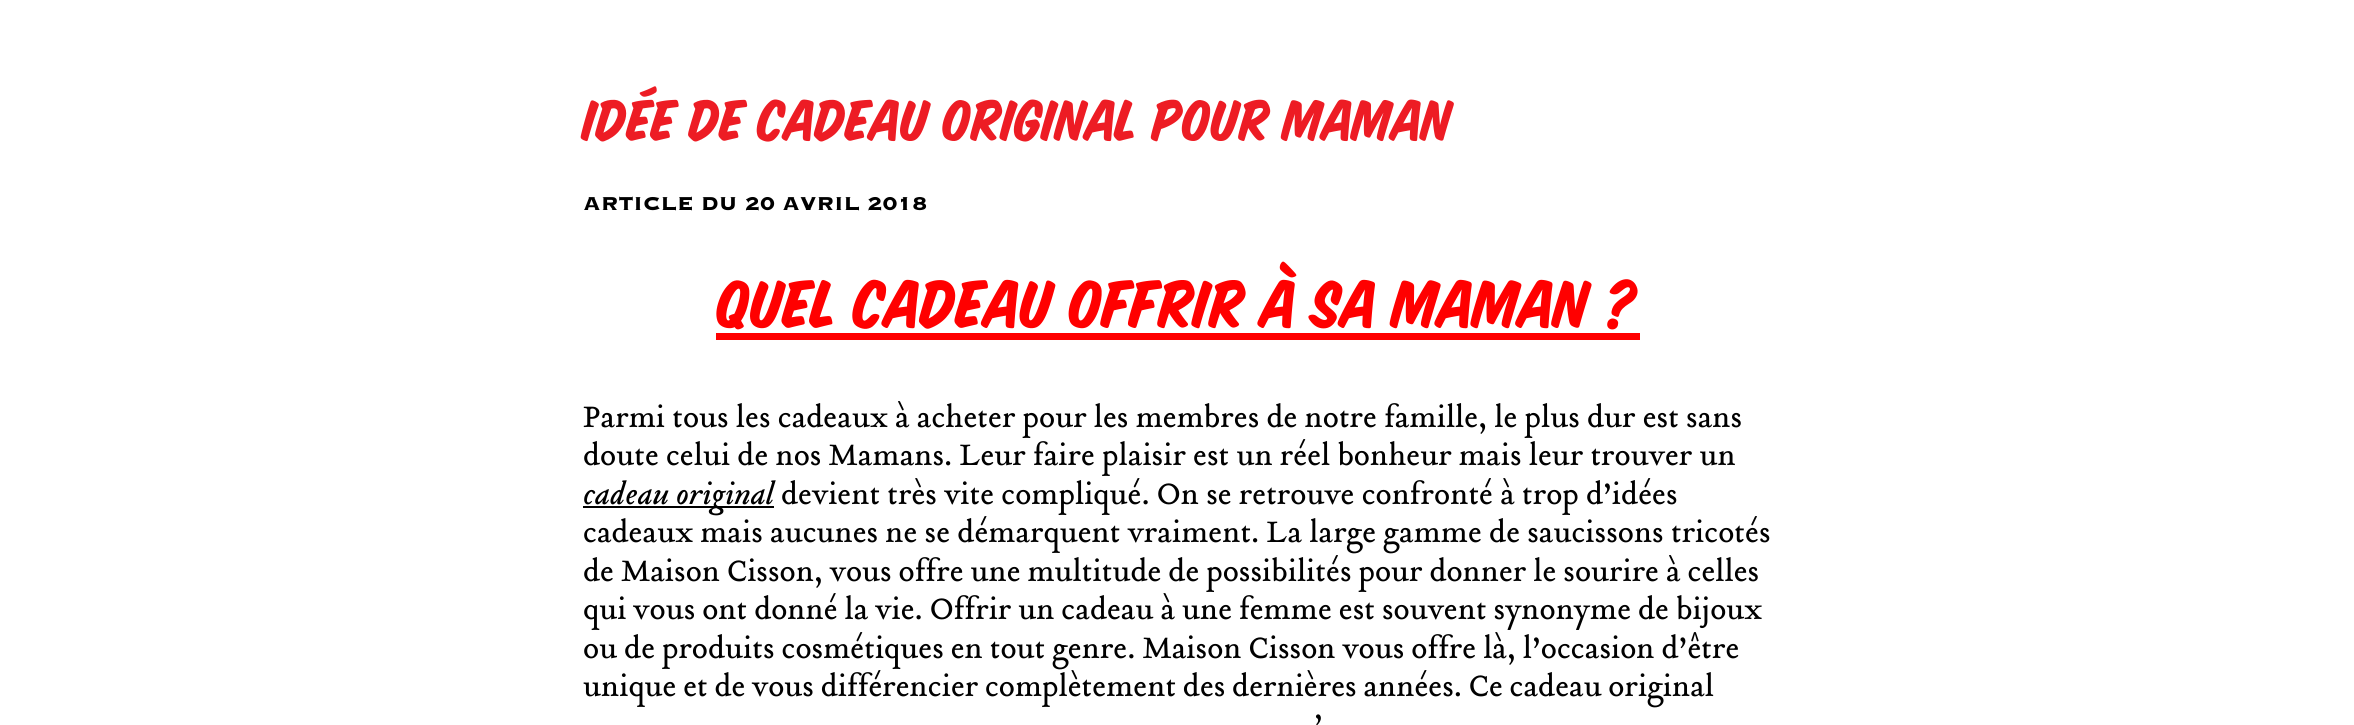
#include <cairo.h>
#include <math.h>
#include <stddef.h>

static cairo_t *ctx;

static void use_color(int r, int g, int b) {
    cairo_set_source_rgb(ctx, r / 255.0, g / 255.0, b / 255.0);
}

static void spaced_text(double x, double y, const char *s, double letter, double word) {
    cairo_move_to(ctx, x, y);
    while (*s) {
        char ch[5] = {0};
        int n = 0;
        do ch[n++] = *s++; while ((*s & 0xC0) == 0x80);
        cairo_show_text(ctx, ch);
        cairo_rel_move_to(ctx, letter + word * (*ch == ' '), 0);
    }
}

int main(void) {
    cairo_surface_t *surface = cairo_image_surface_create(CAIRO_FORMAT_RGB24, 2354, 725);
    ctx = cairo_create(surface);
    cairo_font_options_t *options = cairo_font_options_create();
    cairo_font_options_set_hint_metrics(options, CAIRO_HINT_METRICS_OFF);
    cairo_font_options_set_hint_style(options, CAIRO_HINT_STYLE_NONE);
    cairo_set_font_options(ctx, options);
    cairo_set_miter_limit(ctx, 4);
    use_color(255, 255, 255);
    cairo_paint(ctx);
    cairo_select_font_face(ctx, "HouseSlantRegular", CAIRO_FONT_SLANT_NORMAL, CAIRO_FONT_WEIGHT_NORMAL);
    cairo_set_font_size(ctx, 63);
    use_color(237, 28, 36);
    cairo_move_to(ctx, 583, 140);
    cairo_show_text(ctx, "Idée de cadeau original pour Maman");
    cairo_select_font_face(ctx, "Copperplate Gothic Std", CAIRO_FONT_SLANT_NORMAL, CAIRO_FONT_WEIGHT_NORMAL);
    cairo_set_font_size(ctx, 24.5);
    use_color(0, 0, 0);
    cairo_move_to(ctx, 583, 210);
    cairo_show_text(ctx, "ARTICLE DU 20 AVRIL 2018");
    cairo_select_font_face(ctx, "HouseSlantRegular", CAIRO_FONT_SLANT_NORMAL, CAIRO_FONT_WEIGHT_NORMAL);
    cairo_set_font_size(ctx, 73.5);
    use_color(255, 0, 0);
    cairo_move_to(ctx, 716, 327);
    cairo_show_text(ctx, "Quel cadeau offrir à sa Maman ?");
    cairo_rectangle(ctx, 716, 333, 924, 7);
    cairo_fill(ctx);
    cairo_select_font_face(ctx, "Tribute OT", CAIRO_FONT_SLANT_NORMAL, CAIRO_FONT_WEIGHT_NORMAL);
    cairo_set_font_size(ctx, 32.65);
    use_color(0, 0, 0);
    cairo_move_to(ctx, 583, 427);
    cairo_show_text(ctx, "Parmi tous les cadeaux à acheter pour les membres de notre famille, le plus dur est sans");
    cairo_move_to(ctx, 583, 465);
    cairo_show_text(ctx, "doute celui de nos Mamans. Leur faire plaisir est un réel bonheur mais leur trouver un");
    cairo_rectangle(ctx, 583, 506, 191, 2);
    cairo_fill(ctx);
    cairo_select_font_face(ctx, "Tribute OT", CAIRO_FONT_SLANT_ITALIC, CAIRO_FONT_WEIGHT_NORMAL);
    cairo_move_to(ctx, 583, 504);
    cairo_show_text(ctx, "cadeau original");
    cairo_select_font_face(ctx, "Tribute OT", CAIRO_FONT_SLANT_NORMAL, CAIRO_FONT_WEIGHT_NORMAL);
    cairo_move_to(ctx, 781, 504);
    cairo_show_text(ctx, "devient très vite compliqué. On se retrouve confronté à trop d’idées");
    cairo_move_to(ctx, 583, 542);
    cairo_show_text(ctx, "cadeaux mais aucunes ne se démarquent vraiment. La large gamme de saucissons tricotés");
    spaced_text(583, 581, "de Maison Cisson, vous offre une multitude de possibilités pour donner le sourire à celles", 0, -0.25);
    spaced_text(583, 619, "qui vous ont donné la vie. Offrir un cadeau à une femme est souvent synonyme de bijoux", 0, -0.25);
    spaced_text(583, 658, "ou de produits cosmétiques en tout genre. Maison Cisson vous offre là, l’occasion d’être", 0, -0.25);
    spaced_text(583, 696, "unique et de vous différencier complètement des dernières années. Ce cadeau original", 0, -0.5);
    cairo_move_to(ctx, 1314, 735);
    cairo_show_text(ctx, "’");
    cairo_surface_write_to_png(surface, "result.png");
    cairo_font_options_destroy(options);
    cairo_destroy(ctx);
    cairo_surface_destroy(surface);
    return 0;
}
